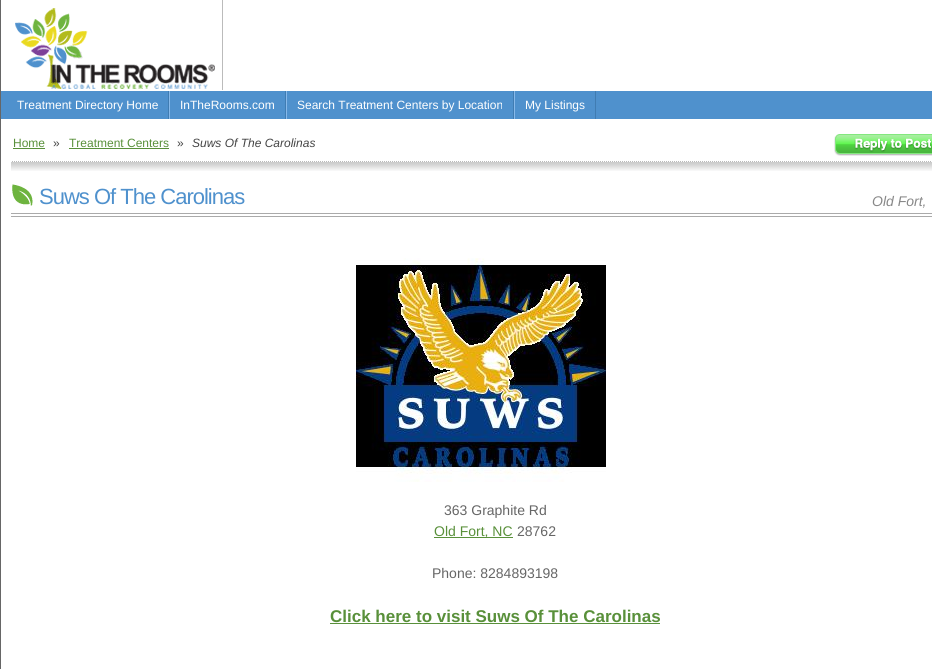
#include <cairo.h>
#include <math.h>
#include <stddef.h>

static cairo_t *ctx;

static void use_color(int r, int g, int b) {
    cairo_set_source_rgb(ctx, r / 255.0, g / 255.0, b / 255.0);
}

static void spaced_text(double x, double y, const char *s, double letter, double word) {
    cairo_move_to(ctx, x, y);
    while (*s) {
        char ch[5] = {0};
        int n = 0;
        do ch[n++] = *s++; while ((*s & 0xC0) == 0x80);
        cairo_show_text(ctx, ch);
        cairo_rel_move_to(ctx, letter + word * (*ch == ' '), 0);
    }
}

static void picture(const char *path, double x, double y, double w, double h) {
    cairo_surface_t *image = cairo_image_surface_create_from_png(path);
    cairo_save(ctx);
    cairo_set_source_surface(ctx, image, x, y);
    cairo_rectangle(ctx, x, y, w, h);
    cairo_fill(ctx);
    cairo_restore(ctx);
    cairo_surface_destroy(image);
}

int main(void) {
    cairo_surface_t *surface = cairo_image_surface_create(CAIRO_FORMAT_RGB24, 932, 669);
    ctx = cairo_create(surface);
    cairo_font_options_t *options = cairo_font_options_create();
    cairo_font_options_set_hint_metrics(options, CAIRO_HINT_METRICS_OFF);
    cairo_font_options_set_hint_style(options, CAIRO_HINT_STYLE_NONE);
    cairo_set_font_options(ctx, options);
    cairo_set_miter_limit(ctx, 4);
    use_color(255, 255, 255);
    cairo_paint(ctx);
    use_color(102, 102, 102);
    cairo_rectangle(ctx, 0, 0, 1, 669);
    cairo_fill(ctx);
    picture("img1.png", 15, 8, 200, 81);
    use_color(187, 187, 187);
    cairo_rectangle(ctx, 222, 0, 1, 90);
    cairo_fill(ctx);
    use_color(79, 145, 205);
    cairo_rectangle(ctx, 1, 91, 931, 28);
    cairo_fill(ctx);
    use_color(64, 124, 178);
    cairo_rectangle(ctx, 168, 91, 1, 28);
    cairo_fill(ctx);
    cairo_select_font_face(ctx, "Liberation Sans", CAIRO_FONT_SLANT_NORMAL, CAIRO_FONT_WEIGHT_NORMAL);
    cairo_set_font_size(ctx, 12);
    use_color(255, 255, 255);
    cairo_move_to(ctx, 17, 109);
    cairo_show_text(ctx, "Treatment Directory Home");
    use_color(64, 124, 178);
    cairo_rectangle(ctx, 285, 91, 1, 28);
    cairo_fill(ctx);
    use_color(135, 185, 234);
    cairo_rectangle(ctx, 169, 91, 1, 28);
    cairo_fill(ctx);
    use_color(255, 255, 255);
    cairo_move_to(ctx, 180, 109);
    cairo_show_text(ctx, "InTheRooms.com");
    use_color(64, 124, 178);
    cairo_rectangle(ctx, 513, 91, 1, 28);
    cairo_fill(ctx);
    use_color(135, 185, 234);
    cairo_rectangle(ctx, 286, 91, 1, 28);
    cairo_fill(ctx);
    use_color(255, 255, 255);
    cairo_move_to(ctx, 297, 109);
    cairo_show_text(ctx, "Search Treatment Centers by Location");
    use_color(64, 124, 178);
    cairo_rectangle(ctx, 595, 91, 1, 28);
    cairo_fill(ctx);
    use_color(135, 185, 234);
    cairo_rectangle(ctx, 514, 91, 1, 28);
    cairo_fill(ctx);
    use_color(255, 255, 255);
    cairo_move_to(ctx, 525, 109);
    cairo_show_text(ctx, "My Listings");
    picture("img2.png", 11, 161, 921, 10);
    use_color(89, 144, 58);
    cairo_move_to(ctx, 13, 147);
    cairo_show_text(ctx, "Home");
    cairo_rectangle(ctx, 13, 148, 32, 1);
    cairo_fill(ctx);
    use_color(68, 68, 68);
    cairo_move_to(ctx, 53, 147);
    cairo_show_text(ctx, "»");
    use_color(89, 144, 58);
    cairo_move_to(ctx, 69, 147);
    cairo_show_text(ctx, "Treatment Centers");
    cairo_rectangle(ctx, 69, 148, 100, 1);
    cairo_fill(ctx);
    use_color(68, 68, 68);
    cairo_move_to(ctx, 177, 147);
    cairo_show_text(ctx, "»");
    cairo_select_font_face(ctx, "Liberation Sans", CAIRO_FONT_SLANT_ITALIC, CAIRO_FONT_WEIGHT_NORMAL);
    cairo_move_to(ctx, 192, 147);
    cairo_show_text(ctx, "Suws Of The Carolinas");
    picture("img3.png", 834, 134, 98, 22);
    picture("img4.png", 12, 184, 21, 22);
    use_color(170, 170, 170);
    cairo_rectangle(ctx, 11, 213, 921, 1);
    cairo_fill(ctx);
    cairo_rectangle(ctx, 11, 216, 921, 1);
    cairo_fill(ctx);
    cairo_select_font_face(ctx, "Liberation Sans", CAIRO_FONT_SLANT_NORMAL, CAIRO_FONT_WEIGHT_NORMAL);
    cairo_set_font_size(ctx, 22);
    use_color(79, 145, 205);
    spaced_text(39, 204, "Suws Of The Carolinas", -1, 0);
    cairo_select_font_face(ctx, "Liberation Sans", CAIRO_FONT_SLANT_ITALIC, CAIRO_FONT_WEIGHT_NORMAL);
    cairo_set_font_size(ctx, 14);
    use_color(136, 136, 136);
    cairo_move_to(ctx, 872, 206);
    cairo_show_text(ctx, "Old Fort,");
    picture("img5.png", 356, 258, 250, 224);
    cairo_select_font_face(ctx, "Liberation Sans", CAIRO_FONT_SLANT_NORMAL, CAIRO_FONT_WEIGHT_NORMAL);
    use_color(102, 102, 102);
    cairo_move_to(ctx, 444, 515);
    cairo_show_text(ctx, "363 Graphite Rd");
    use_color(89, 144, 58);
    cairo_rectangle(ctx, 434, 537, 79, 1);
    cairo_fill(ctx);
    cairo_move_to(ctx, 434, 536);
    cairo_show_text(ctx, "Old Fort, NC");
    use_color(102, 102, 102);
    cairo_move_to(ctx, 517, 536);
    cairo_show_text(ctx, "28762");
    cairo_move_to(ctx, 432, 578);
    cairo_show_text(ctx, "Phone: 8284893198");
    cairo_select_font_face(ctx, "Liberation Sans", CAIRO_FONT_SLANT_NORMAL, CAIRO_FONT_WEIGHT_BOLD);
    cairo_set_font_size(ctx, 17);
    use_color(89, 144, 58);
    cairo_move_to(ctx, 330, 622);
    cairo_show_text(ctx, "Click here to visit Suws Of The Carolinas");
    cairo_rectangle(ctx, 330, 623, 330, 1);
    cairo_fill(ctx);
    cairo_surface_write_to_png(surface, "result.png");
    cairo_font_options_destroy(options);
    cairo_destroy(ctx);
    cairo_surface_destroy(surface);
    return 0;
}
